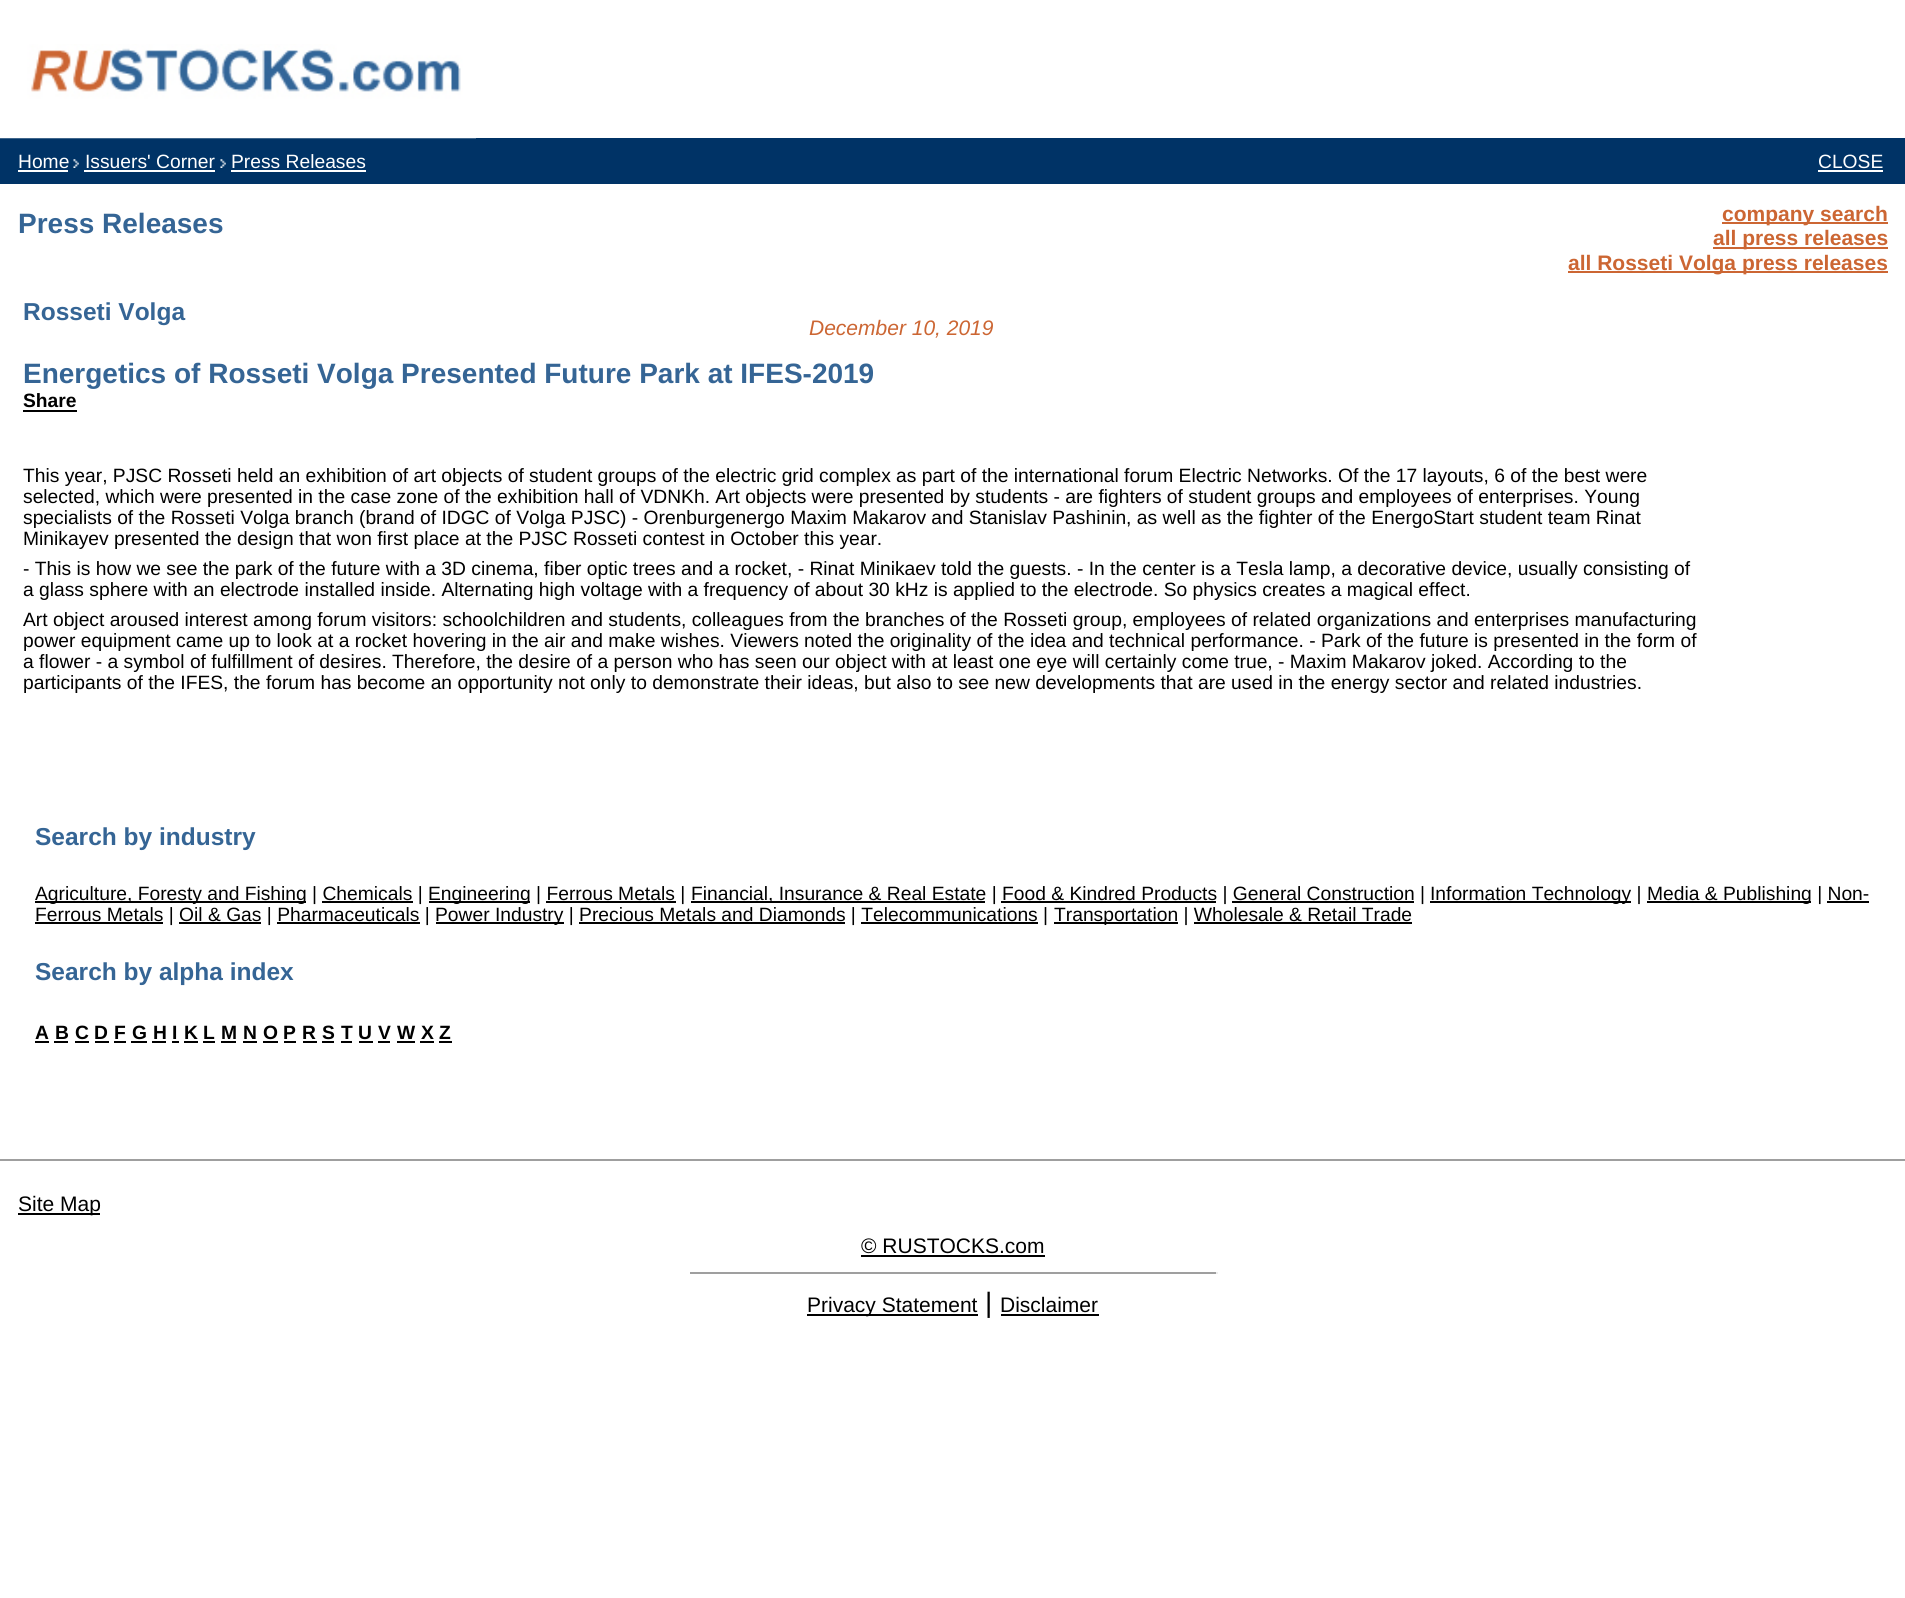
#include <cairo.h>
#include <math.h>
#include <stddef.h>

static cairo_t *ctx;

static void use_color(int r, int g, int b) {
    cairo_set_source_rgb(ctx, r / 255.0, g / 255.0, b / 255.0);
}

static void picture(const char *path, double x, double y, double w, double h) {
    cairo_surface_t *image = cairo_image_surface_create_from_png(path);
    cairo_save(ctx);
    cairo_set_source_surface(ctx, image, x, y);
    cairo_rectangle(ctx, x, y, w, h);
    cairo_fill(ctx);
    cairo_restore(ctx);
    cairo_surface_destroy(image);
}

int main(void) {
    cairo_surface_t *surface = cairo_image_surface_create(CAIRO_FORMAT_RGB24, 1905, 1598);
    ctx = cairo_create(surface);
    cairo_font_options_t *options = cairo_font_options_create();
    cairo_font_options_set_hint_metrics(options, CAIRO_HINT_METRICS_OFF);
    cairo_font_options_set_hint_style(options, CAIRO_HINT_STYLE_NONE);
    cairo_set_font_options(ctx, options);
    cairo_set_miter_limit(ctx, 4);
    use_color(255, 255, 255);
    cairo_paint(ctx);
    use_color(0, 51, 102);
    cairo_rectangle(ctx, 0, 138, 1905, 46);
    cairo_fill(ctx);
    picture("img1.png", 0, 44, 476, 95);
    cairo_select_font_face(ctx, "Liberation Sans", CAIRO_FONT_SLANT_NORMAL, CAIRO_FONT_WEIGHT_NORMAL);
    cairo_set_font_size(ctx, 19.25);
    use_color(255, 255, 255);
    cairo_move_to(ctx, 18, 168);
    cairo_show_text(ctx, "Home");
    cairo_rectangle(ctx, 18, 170, 50, 2);
    cairo_fill(ctx);
    picture("img2.png", 73, 159, 6, 9);
    cairo_move_to(ctx, 85, 168);
    cairo_show_text(ctx, "Issuers' Corner");
    cairo_rectangle(ctx, 84, 170, 131, 2);
    cairo_fill(ctx);
    picture("img2.png", 220, 159, 6, 9);
    cairo_move_to(ctx, 231, 168);
    cairo_show_text(ctx, "Press Releases");
    cairo_rectangle(ctx, 231, 170, 135, 2);
    cairo_fill(ctx);
    cairo_move_to(ctx, 1818, 168);
    cairo_show_text(ctx, "CLOSE");
    cairo_rectangle(ctx, 1818, 170, 65, 2);
    cairo_fill(ctx);
    cairo_select_font_face(ctx, "Liberation Sans", CAIRO_FONT_SLANT_NORMAL, CAIRO_FONT_WEIGHT_BOLD);
    cairo_set_font_size(ctx, 28);
    use_color(53, 101, 149);
    cairo_move_to(ctx, 18, 233);
    cairo_show_text(ctx, "Press Releases");
    use_color(204, 102, 51);
    cairo_rectangle(ctx, 1722, 222, 166, 2);
    cairo_fill(ctx);
    cairo_set_font_size(ctx, 21);
    cairo_move_to(ctx, 1722, 221);
    cairo_show_text(ctx, "company search");
    cairo_rectangle(ctx, 1713, 247, 175, 2);
    cairo_fill(ctx);
    cairo_move_to(ctx, 1713, 245);
    cairo_show_text(ctx, "all press releases");
    cairo_rectangle(ctx, 1568, 271, 320, 2);
    cairo_fill(ctx);
    cairo_move_to(ctx, 1568, 270);
    cairo_show_text(ctx, "all Rosseti Volga press releases");
    cairo_set_font_size(ctx, 24.5);
    use_color(53, 101, 149);
    cairo_move_to(ctx, 23, 320);
    cairo_show_text(ctx, "Rosseti Volga");
    cairo_select_font_face(ctx, "Liberation Sans", CAIRO_FONT_SLANT_ITALIC, CAIRO_FONT_WEIGHT_NORMAL);
    cairo_set_font_size(ctx, 21);
    use_color(204, 102, 51);
    cairo_move_to(ctx, 809, 335);
    cairo_show_text(ctx, "December 10, 2019");
    cairo_select_font_face(ctx, "Liberation Sans", CAIRO_FONT_SLANT_NORMAL, CAIRO_FONT_WEIGHT_BOLD);
    cairo_set_font_size(ctx, 28);
    use_color(53, 101, 149);
    cairo_move_to(ctx, 23, 383);
    cairo_show_text(ctx, "Energetics of Rosseti Volga Presented Future Park at IFES-2019");
    cairo_set_font_size(ctx, 19.25);
    use_color(0, 0, 0);
    cairo_move_to(ctx, 23, 407);
    cairo_show_text(ctx, "Share");
    cairo_rectangle(ctx, 23, 410, 54, 2);
    cairo_fill(ctx);
    cairo_select_font_face(ctx, "Liberation Sans", CAIRO_FONT_SLANT_NORMAL, CAIRO_FONT_WEIGHT_NORMAL);
    cairo_move_to(ctx, 23, 482);
    cairo_show_text(ctx, "This year, PJSC Rosseti held an exhibition of art objects of student groups of the electric grid complex as part of the international forum Electric Networks. Of the 17 layouts, 6 of the best were");
    cairo_move_to(ctx, 23, 503);
    cairo_show_text(ctx, "selected, which were presented in the case zone of the exhibition hall of VDNKh. Art objects were presented by students - are fighters of student groups and employees of enterprises. Young");
    cairo_move_to(ctx, 23, 524);
    cairo_show_text(ctx, "specialists of the Rosseti Volga branch (brand of IDGC of Volga PJSC) - Orenburgenergo Maxim Makarov and Stanislav Pashinin, as well as the fighter of the EnergoStart student team Rinat");
    cairo_move_to(ctx, 23, 545);
    cairo_show_text(ctx, "Minikayev presented the design that won first place at the PJSC Rosseti contest in October this year.");
    cairo_move_to(ctx, 23, 575);
    cairo_show_text(ctx, "- This is how we see the park of the future with a 3D cinema, fiber optic trees and a rocket, - Rinat Minikaev told the guests. - In the center is a Tesla lamp, a decorative device, usually consisting of");
    cairo_move_to(ctx, 23, 596);
    cairo_show_text(ctx, "a glass sphere with an electrode installed inside. Alternating high voltage with a frequency of about 30 kHz is applied to the electrode. So physics creates a magical effect.");
    cairo_move_to(ctx, 23, 626);
    cairo_show_text(ctx, "Art object aroused interest among forum visitors: schoolchildren and students, colleagues from the branches of the Rosseti group, employees of related organizations and enterprises manufacturing");
    cairo_move_to(ctx, 23, 647);
    cairo_show_text(ctx, "power equipment came up to look at a rocket hovering in the air and make wishes. Viewers noted the originality of the idea and technical performance. - Park of the future is presented in the form of");
    cairo_move_to(ctx, 23, 668);
    cairo_show_text(ctx, "a flower - a symbol of fulfillment of desires. Therefore, the desire of a person who has seen our object with at least one eye will certainly come true, - Maxim Makarov joked. According to the");
    cairo_move_to(ctx, 23, 689);
    cairo_show_text(ctx, "participants of the IFES, the forum has become an opportunity not only to demonstrate their ideas, but also to see new developments that are used in the energy sector and related industries.");
    cairo_select_font_face(ctx, "Liberation Sans", CAIRO_FONT_SLANT_NORMAL, CAIRO_FONT_WEIGHT_BOLD);
    cairo_set_font_size(ctx, 24.5);
    use_color(53, 101, 149);
    cairo_move_to(ctx, 35, 845);
    cairo_show_text(ctx, "Search by industry");
    use_color(0, 0, 0);
    cairo_rectangle(ctx, 35, 901, 271, 2);
    cairo_fill(ctx);
    cairo_select_font_face(ctx, "Liberation Sans", CAIRO_FONT_SLANT_NORMAL, CAIRO_FONT_WEIGHT_NORMAL);
    cairo_set_font_size(ctx, 19.25);
    cairo_move_to(ctx, 35, 900);
    cairo_show_text(ctx, "Agriculture, Foresty and Fishing | Chemicals |");
    cairo_rectangle(ctx, 429, 901, 101, 2);
    cairo_fill(ctx);
    cairo_move_to(ctx, 428, 900);
    cairo_show_text(ctx, "Engineering | Ferrous Metals |");
    cairo_rectangle(ctx, 691, 901, 294, 2);
    cairo_fill(ctx);
    cairo_move_to(ctx, 691, 900);
    cairo_show_text(ctx, "Financial, Insurance & Real Estate | Food & Kindred Products | General Construction |");
    cairo_rectangle(ctx, 1430, 901, 201, 2);
    cairo_fill(ctx);
    cairo_move_to(ctx, 1430, 900);
    cairo_show_text(ctx, "Information Technology |");
    cairo_rectangle(ctx, 1647, 901, 164, 2);
    cairo_fill(ctx);
    cairo_move_to(ctx, 1647, 900);
    cairo_show_text(ctx, "Media & Publishing | Non-");
    cairo_rectangle(ctx, 322, 901, 91, 2);
    cairo_fill(ctx);
    cairo_rectangle(ctx, 546, 901, 130, 2);
    cairo_fill(ctx);
    cairo_rectangle(ctx, 1001, 901, 215, 2);
    cairo_fill(ctx);
    cairo_rectangle(ctx, 1232, 901, 182, 2);
    cairo_fill(ctx);
    cairo_rectangle(ctx, 35, 922, 128, 2);
    cairo_fill(ctx);
    cairo_move_to(ctx, 35, 921);
    cairo_show_text(ctx, "Ferrous Metals | Oil & Gas | Pharmaceuticals |");
    cairo_rectangle(ctx, 1827, 901, 42, 2);
    cairo_fill(ctx);
    cairo_rectangle(ctx, 436, 922, 128, 2);
    cairo_fill(ctx);
    cairo_move_to(ctx, 435, 921);
    cairo_show_text(ctx, "Power Industry | Precious Metals and Diamonds | Telecommunications |");
    cairo_rectangle(ctx, 1054, 922, 124, 2);
    cairo_fill(ctx);
    cairo_move_to(ctx, 1054, 921);
    cairo_show_text(ctx, "Transportation | Wholesale & Retail Trade");
    cairo_rectangle(ctx, 179, 922, 82, 2);
    cairo_fill(ctx);
    cairo_rectangle(ctx, 277, 922, 143, 2);
    cairo_fill(ctx);
    cairo_rectangle(ctx, 579, 922, 266, 2);
    cairo_fill(ctx);
    cairo_rectangle(ctx, 861, 922, 177, 2);
    cairo_fill(ctx);
    cairo_rectangle(ctx, 1194, 922, 218, 2);
    cairo_fill(ctx);
    cairo_select_font_face(ctx, "Liberation Sans", CAIRO_FONT_SLANT_NORMAL, CAIRO_FONT_WEIGHT_BOLD);
    cairo_set_font_size(ctx, 24.5);
    use_color(53, 101, 149);
    cairo_move_to(ctx, 35, 980);
    cairo_show_text(ctx, "Search by alpha index");
    cairo_set_font_size(ctx, 19.25);
    use_color(0, 0, 0);
    cairo_move_to(ctx, 35, 1039);
    cairo_show_text(ctx, "A");
    cairo_rectangle(ctx, 35, 1041, 14, 2);
    cairo_fill(ctx);
    cairo_move_to(ctx, 55, 1039);
    cairo_show_text(ctx, "B");
    cairo_rectangle(ctx, 54, 1041, 14, 2);
    cairo_fill(ctx);
    cairo_move_to(ctx, 75, 1039);
    cairo_show_text(ctx, "C");
    cairo_rectangle(ctx, 75, 1041, 14, 2);
    cairo_fill(ctx);
    cairo_move_to(ctx, 94, 1039);
    cairo_show_text(ctx, "D");
    cairo_rectangle(ctx, 95, 1041, 14, 2);
    cairo_fill(ctx);
    cairo_move_to(ctx, 114, 1039);
    cairo_show_text(ctx, "F");
    cairo_rectangle(ctx, 114, 1041, 12, 2);
    cairo_fill(ctx);
    cairo_move_to(ctx, 132, 1039);
    cairo_show_text(ctx, "G");
    cairo_rectangle(ctx, 131, 1041, 16, 2);
    cairo_fill(ctx);
    cairo_move_to(ctx, 153, 1039);
    cairo_show_text(ctx, "H");
    cairo_rectangle(ctx, 152, 1041, 14, 2);
    cairo_fill(ctx);
    cairo_move_to(ctx, 172, 1039);
    cairo_show_text(ctx, "I");
    cairo_rectangle(ctx, 172, 1041, 7, 2);
    cairo_fill(ctx);
    cairo_move_to(ctx, 184, 1039);
    cairo_show_text(ctx, "K");
    cairo_rectangle(ctx, 184, 1041, 14, 2);
    cairo_fill(ctx);
    cairo_move_to(ctx, 203, 1039);
    cairo_show_text(ctx, "L");
    cairo_rectangle(ctx, 203, 1041, 12, 2);
    cairo_fill(ctx);
    cairo_move_to(ctx, 221, 1039);
    cairo_show_text(ctx, "M");
    cairo_rectangle(ctx, 221, 1041, 15, 2);
    cairo_fill(ctx);
    cairo_move_to(ctx, 243, 1039);
    cairo_show_text(ctx, "N");
    cairo_rectangle(ctx, 243, 1041, 14, 2);
    cairo_fill(ctx);
    cairo_move_to(ctx, 263, 1039);
    cairo_show_text(ctx, "O");
    cairo_rectangle(ctx, 263, 1041, 15, 2);
    cairo_fill(ctx);
    cairo_move_to(ctx, 283, 1039);
    cairo_show_text(ctx, "P");
    cairo_rectangle(ctx, 284, 1041, 12, 2);
    cairo_fill(ctx);
    cairo_move_to(ctx, 302, 1039);
    cairo_show_text(ctx, "R");
    cairo_rectangle(ctx, 303, 1041, 14, 2);
    cairo_fill(ctx);
    cairo_move_to(ctx, 322, 1039);
    cairo_show_text(ctx, "S");
    cairo_rectangle(ctx, 322, 1041, 12, 2);
    cairo_fill(ctx);
    cairo_move_to(ctx, 341, 1039);
    cairo_show_text(ctx, "T");
    cairo_rectangle(ctx, 341, 1041, 11, 2);
    cairo_fill(ctx);
    cairo_move_to(ctx, 358, 1039);
    cairo_show_text(ctx, "U");
    cairo_rectangle(ctx, 359, 1041, 14, 2);
    cairo_fill(ctx);
    cairo_move_to(ctx, 378, 1039);
    cairo_show_text(ctx, "V");
    cairo_rectangle(ctx, 378, 1041, 12, 2);
    cairo_fill(ctx);
    cairo_move_to(ctx, 397, 1039);
    cairo_show_text(ctx, "W");
    cairo_rectangle(ctx, 397, 1041, 18, 2);
    cairo_fill(ctx);
    cairo_move_to(ctx, 421, 1039);
    cairo_show_text(ctx, "X");
    cairo_rectangle(ctx, 420, 1041, 14, 2);
    cairo_fill(ctx);
    cairo_move_to(ctx, 439, 1039);
    cairo_show_text(ctx, "Z");
    cairo_rectangle(ctx, 439, 1041, 13, 2);
    cairo_fill(ctx);
    use_color(159, 159, 159);
    cairo_rectangle(ctx, 0, 1159, 1905, 2);
    cairo_fill(ctx);
    use_color(0, 0, 0);
    cairo_rectangle(ctx, 18, 1213, 82, 2);
    cairo_fill(ctx);
    cairo_select_font_face(ctx, "Liberation Sans", CAIRO_FONT_SLANT_NORMAL, CAIRO_FONT_WEIGHT_NORMAL);
    cairo_set_font_size(ctx, 21);
    cairo_move_to(ctx, 18, 1211);
    cairo_show_text(ctx, "Site Map");
    cairo_move_to(ctx, 861, 1253);
    cairo_show_text(ctx, "© RUSTOCKS.com");
    cairo_rectangle(ctx, 861, 1255, 184, 2);
    cairo_fill(ctx);
    use_color(159, 159, 159);
    cairo_rectangle(ctx, 690, 1272, 528, 2);
    cairo_fill(ctx);
    use_color(238, 238, 238);
    cairo_rectangle(ctx, 1216, 1272, 2, 2);
    cairo_fill(ctx);
    use_color(0, 0, 0);
    cairo_rectangle(ctx, 807, 1314, 171, 2);
    cairo_fill(ctx);
    cairo_move_to(ctx, 807, 1312);
    cairo_show_text(ctx, "Privacy Statement");
    cairo_set_font_size(ctx, 28);
    cairo_move_to(ctx, 985, 1312);
    cairo_show_text(ctx, "|");
    cairo_set_font_size(ctx, 21);
    cairo_move_to(ctx, 1000, 1312);
    cairo_show_text(ctx, "Disclaimer");
    cairo_rectangle(ctx, 1001, 1314, 98, 2);
    cairo_fill(ctx);
    cairo_surface_write_to_png(surface, "result.png");
    cairo_font_options_destroy(options);
    cairo_destroy(ctx);
    cairo_surface_destroy(surface);
    return 0;
}
